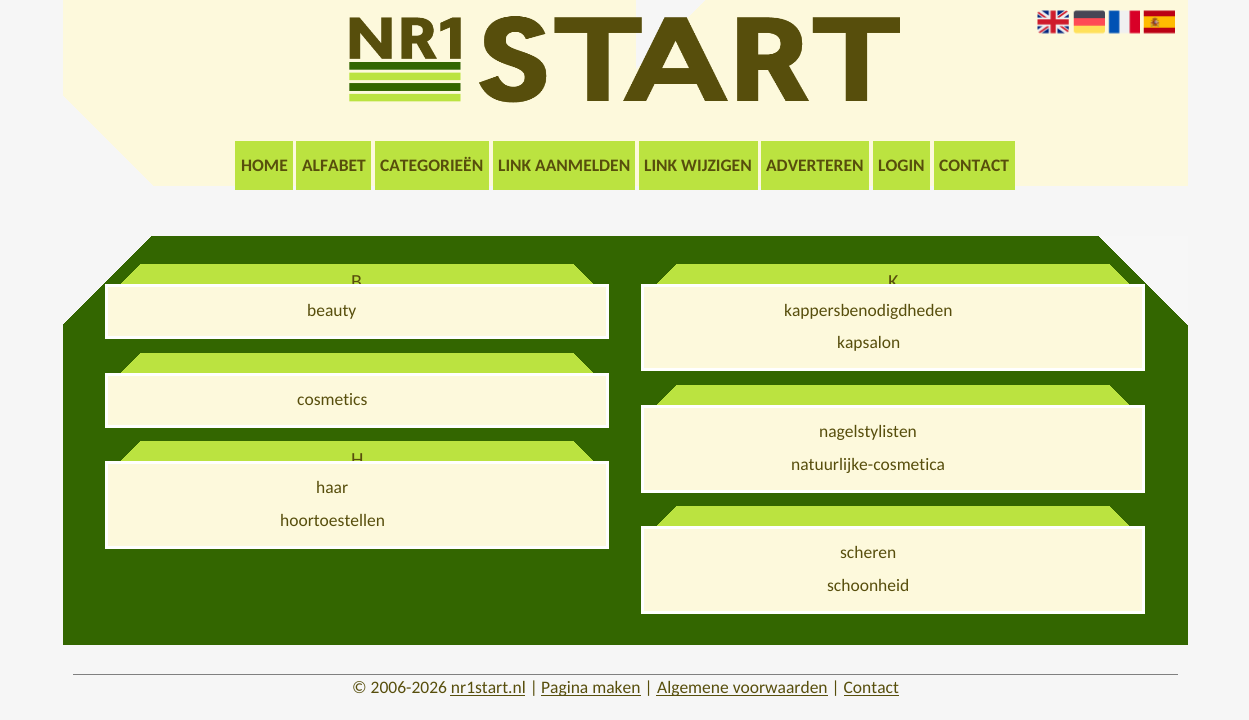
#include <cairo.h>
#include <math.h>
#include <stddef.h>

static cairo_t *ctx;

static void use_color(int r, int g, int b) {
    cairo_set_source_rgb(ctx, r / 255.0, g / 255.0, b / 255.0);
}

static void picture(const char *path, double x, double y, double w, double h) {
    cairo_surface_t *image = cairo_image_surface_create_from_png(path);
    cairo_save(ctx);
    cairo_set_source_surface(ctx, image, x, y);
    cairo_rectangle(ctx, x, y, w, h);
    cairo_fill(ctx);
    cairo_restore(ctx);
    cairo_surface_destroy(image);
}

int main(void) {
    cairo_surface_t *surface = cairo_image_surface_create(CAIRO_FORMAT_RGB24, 1249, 720);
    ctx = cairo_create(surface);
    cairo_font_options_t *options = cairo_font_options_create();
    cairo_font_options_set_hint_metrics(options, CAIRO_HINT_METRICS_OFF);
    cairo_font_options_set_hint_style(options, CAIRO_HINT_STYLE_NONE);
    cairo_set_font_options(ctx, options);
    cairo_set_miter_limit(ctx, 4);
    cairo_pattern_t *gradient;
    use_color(246, 246, 246);
    cairo_paint(ctx);
    gradient = cairo_pattern_create_linear(159, 283, 539, -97);
    cairo_pattern_add_color_stop_rgba(gradient, 0.12, 0.965, 0.965, 0.965, 1);
    cairo_pattern_add_color_stop_rgba(gradient, 0.12, 0.992, 0.976, 0.863, 1);
    cairo_set_source(ctx, gradient);
    cairo_pattern_destroy(gradient);
    cairo_rectangle(ctx, 63, 0, 573, 186);
    cairo_fill(ctx);
    gradient = cairo_pattern_create_linear(711, -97, 1091, 283);
    cairo_pattern_add_color_stop_rgba(gradient, 0.12, 0.992, 0.976, 0.863, 0);
    cairo_pattern_add_color_stop_rgba(gradient, 0.12, 0.992, 0.976, 0.863, 1);
    cairo_set_source(ctx, gradient);
    cairo_pattern_destroy(gradient);
    cairo_rectangle(ctx, 636, 0, 552, 186);
    cairo_fill(ctx);
    picture("img1.png", 349, 16, 551, 87);
    picture("img2.png", 1037, 10, 32, 24);
    picture("img3.png", 1073, 10, 32, 24);
    picture("img4.png", 1108, 10, 32, 24);
    picture("img5.png", 1143, 10, 32, 24);
    use_color(187, 227, 64);
    cairo_rectangle(ctx, 235, 141, 58, 49);
    cairo_fill(ctx);
    cairo_select_font_face(ctx, "Carlito", CAIRO_FONT_SLANT_NORMAL, CAIRO_FONT_WEIGHT_BOLD);
    cairo_set_font_size(ctx, 17.5);
    use_color(87, 78, 12);
    cairo_move_to(ctx, 241, 171);
    cairo_show_text(ctx, "HOME");
    use_color(187, 227, 64);
    cairo_rectangle(ctx, 296, 141, 75, 49);
    cairo_fill(ctx);
    use_color(87, 78, 12);
    cairo_move_to(ctx, 302, 171);
    cairo_show_text(ctx, "ALFABET");
    use_color(187, 227, 64);
    cairo_rectangle(ctx, 375, 141, 114, 49);
    cairo_fill(ctx);
    use_color(87, 78, 12);
    cairo_move_to(ctx, 380, 171);
    cairo_show_text(ctx, "CATEGORIEËN");
    use_color(187, 227, 64);
    cairo_rectangle(ctx, 493, 141, 142, 49);
    cairo_fill(ctx);
    use_color(87, 78, 12);
    cairo_move_to(ctx, 498, 171);
    cairo_show_text(ctx, "LINK AANMELDEN");
    use_color(187, 227, 64);
    cairo_rectangle(ctx, 639, 141, 119, 49);
    cairo_fill(ctx);
    use_color(87, 78, 12);
    cairo_move_to(ctx, 644, 171);
    cairo_show_text(ctx, "LINK WIJZIGEN");
    use_color(187, 227, 64);
    cairo_rectangle(ctx, 761, 141, 108, 49);
    cairo_fill(ctx);
    use_color(87, 78, 12);
    cairo_move_to(ctx, 766, 171);
    cairo_show_text(ctx, "ADVERTEREN");
    use_color(187, 227, 64);
    cairo_rectangle(ctx, 873, 141, 57, 49);
    cairo_fill(ctx);
    use_color(87, 78, 12);
    cairo_move_to(ctx, 878, 171);
    cairo_show_text(ctx, "LOGIN");
    use_color(187, 227, 64);
    cairo_rectangle(ctx, 934, 141, 81, 49);
    cairo_fill(ctx);
    use_color(87, 78, 12);
    cairo_move_to(ctx, 939, 171);
    cairo_show_text(ctx, "CONTACT");
    gradient = cairo_pattern_create_linear(1146, 195, 655, 686);
    cairo_pattern_add_color_stop_rgba(gradient, 0.09, 0.969, 0.969, 0.969, 1);
    cairo_pattern_add_color_stop_rgba(gradient, 0.09, 0.2, 0.4, 0, 1);
    cairo_set_source(ctx, gradient);
    cairo_pattern_destroy(gradient);
    cairo_rectangle(ctx, 636, 236, 552, 409);
    cairo_fill(ctx);
    gradient = cairo_pattern_create_linear(104, 195, 595, 686);
    cairo_pattern_add_color_stop_rgba(gradient, 0.09, 0.2, 0.4, 0, 0);
    cairo_pattern_add_color_stop_rgba(gradient, 0.09, 0.2, 0.4, 0, 1);
    cairo_set_source(ctx, gradient);
    cairo_pattern_destroy(gradient);
    cairo_rectangle(ctx, 63, 236, 573, 409);
    cairo_fill(ctx);
    gradient = cairo_pattern_create_linear(554, 209, 407, 356);
    cairo_pattern_add_color_stop_rgba(gradient, 0.12, 0.2, 0.4, 0, 1);
    cairo_pattern_add_color_stop_rgba(gradient, 0.12, 0.733, 0.89, 0.251, 1);
    cairo_set_source(ctx, gradient);
    cairo_pattern_destroy(gradient);
    cairo_rectangle(ctx, 363, 264, 230, 20);
    cairo_fill(ctx);
    gradient = cairo_pattern_create_linear(160, 209, 307, 356);
    cairo_pattern_add_color_stop_rgba(gradient, 0.12, 0.733, 0.89, 0.251, 0);
    cairo_pattern_add_color_stop_rgba(gradient, 0.12, 0.733, 0.89, 0.251, 1);
    cairo_set_source(ctx, gradient);
    cairo_pattern_destroy(gradient);
    cairo_rectangle(ctx, 121, 264, 242, 20);
    cairo_fill(ctx);
    cairo_select_font_face(ctx, "Carlito", CAIRO_FONT_SLANT_NORMAL, CAIRO_FONT_WEIGHT_NORMAL);
    cairo_set_font_size(ctx, 20);
    use_color(87, 78, 12);
    cairo_move_to(ctx, 351, 288);
    cairo_show_text(ctx, "B");
    use_color(253, 249, 220);
    cairo_rectangle(ctx, 106.5, 285.5, 501, 52);
    cairo_fill_preserve(ctx);
    use_color(255, 255, 255);
    cairo_set_line_width(ctx, 3);
    cairo_stroke(ctx);
    cairo_set_font_size(ctx, 17.5);
    use_color(87, 78, 12);
    cairo_move_to(ctx, 307, 316);
    cairo_show_text(ctx, "beauty");
    gradient = cairo_pattern_create_linear(1090, 209, 943, 356);
    cairo_pattern_add_color_stop_rgba(gradient, 0.12, 0.733, 0.89, 0.251, 0);
    cairo_pattern_add_color_stop_rgba(gradient, 0.12, 0.733, 0.89, 0.251, 1);
    cairo_set_source(ctx, gradient);
    cairo_pattern_destroy(gradient);
    cairo_rectangle(ctx, 899, 264, 230, 20);
    cairo_fill(ctx);
    gradient = cairo_pattern_create_linear(696, 209, 843, 356);
    cairo_pattern_add_color_stop_rgba(gradient, 0.12, 0.733, 0.89, 0.251, 0);
    cairo_pattern_add_color_stop_rgba(gradient, 0.12, 0.733, 0.89, 0.251, 1);
    cairo_set_source(ctx, gradient);
    cairo_pattern_destroy(gradient);
    cairo_rectangle(ctx, 657, 264, 242, 20);
    cairo_fill(ctx);
    cairo_set_font_size(ctx, 20);
    use_color(87, 78, 12);
    cairo_move_to(ctx, 888, 288);
    cairo_show_text(ctx, "K");
    use_color(253, 249, 220);
    cairo_rectangle(ctx, 642.5, 285.5, 501, 84);
    cairo_fill_preserve(ctx);
    use_color(255, 255, 255);
    cairo_stroke(ctx);
    cairo_set_font_size(ctx, 17.5);
    use_color(87, 78, 12);
    cairo_move_to(ctx, 784, 316);
    cairo_show_text(ctx, "kappersbenodigdheden");
    cairo_move_to(ctx, 837, 348);
    cairo_show_text(ctx, "kapsalon");
    gradient = cairo_pattern_create_linear(554, 298, 407, 445);
    cairo_pattern_add_color_stop_rgba(gradient, 0.12, 0.2, 0.4, 0, 1);
    cairo_pattern_add_color_stop_rgba(gradient, 0.12, 0.733, 0.89, 0.251, 1);
    cairo_set_source(ctx, gradient);
    cairo_pattern_destroy(gradient);
    cairo_rectangle(ctx, 363, 353, 230, 20);
    cairo_fill(ctx);
    gradient = cairo_pattern_create_linear(160, 298, 307, 445);
    cairo_pattern_add_color_stop_rgba(gradient, 0.12, 0.733, 0.89, 0.251, 0);
    cairo_pattern_add_color_stop_rgba(gradient, 0.12, 0.733, 0.89, 0.251, 1);
    cairo_set_source(ctx, gradient);
    cairo_pattern_destroy(gradient);
    cairo_rectangle(ctx, 121, 353, 242, 20);
    cairo_fill(ctx);
    use_color(253, 249, 220);
    cairo_rectangle(ctx, 106.5, 374.5, 501, 52);
    cairo_fill_preserve(ctx);
    use_color(255, 255, 255);
    cairo_stroke(ctx);
    use_color(87, 78, 12);
    cairo_move_to(ctx, 297, 405);
    cairo_show_text(ctx, "cosmetics");
    gradient = cairo_pattern_create_linear(554, 386, 407, 534);
    cairo_pattern_add_color_stop_rgba(gradient, 0.12, 0.2, 0.4, 0, 1);
    cairo_pattern_add_color_stop_rgba(gradient, 0.12, 0.733, 0.89, 0.251, 1);
    cairo_set_source(ctx, gradient);
    cairo_pattern_destroy(gradient);
    cairo_rectangle(ctx, 363, 441, 230, 20);
    cairo_fill(ctx);
    gradient = cairo_pattern_create_linear(160, 386, 307, 534);
    cairo_pattern_add_color_stop_rgba(gradient, 0.12, 0.733, 0.89, 0.251, 0);
    cairo_pattern_add_color_stop_rgba(gradient, 0.12, 0.733, 0.89, 0.251, 1);
    cairo_set_source(ctx, gradient);
    cairo_pattern_destroy(gradient);
    cairo_rectangle(ctx, 121, 441, 242, 20);
    cairo_fill(ctx);
    cairo_set_font_size(ctx, 20);
    use_color(87, 78, 12);
    cairo_move_to(ctx, 351, 466);
    cairo_show_text(ctx, "H");
    use_color(253, 249, 220);
    cairo_rectangle(ctx, 106.5, 462.5, 501, 85);
    cairo_fill_preserve(ctx);
    use_color(255, 255, 255);
    cairo_stroke(ctx);
    cairo_set_font_size(ctx, 17.5);
    use_color(87, 78, 12);
    cairo_move_to(ctx, 316, 493);
    cairo_show_text(ctx, "haar");
    cairo_move_to(ctx, 280, 526);
    cairo_show_text(ctx, "hoortoestellen");
    gradient = cairo_pattern_create_linear(1090, 330, 943, 477);
    cairo_pattern_add_color_stop_rgba(gradient, 0.12, 0.2, 0.4, 0, 1);
    cairo_pattern_add_color_stop_rgba(gradient, 0.12, 0.733, 0.89, 0.251, 1);
    cairo_set_source(ctx, gradient);
    cairo_pattern_destroy(gradient);
    cairo_rectangle(ctx, 899, 385, 230, 20);
    cairo_fill(ctx);
    gradient = cairo_pattern_create_linear(696, 330, 843, 477);
    cairo_pattern_add_color_stop_rgba(gradient, 0.12, 0.733, 0.89, 0.251, 0);
    cairo_pattern_add_color_stop_rgba(gradient, 0.12, 0.733, 0.89, 0.251, 1);
    cairo_set_source(ctx, gradient);
    cairo_pattern_destroy(gradient);
    cairo_rectangle(ctx, 657, 385, 242, 20);
    cairo_fill(ctx);
    use_color(253, 249, 220);
    cairo_rectangle(ctx, 642.5, 406.5, 501, 85);
    cairo_fill_preserve(ctx);
    use_color(255, 255, 255);
    cairo_stroke(ctx);
    use_color(87, 78, 12);
    cairo_move_to(ctx, 819, 437);
    cairo_show_text(ctx, "nagelstylisten");
    cairo_move_to(ctx, 791, 470);
    cairo_show_text(ctx, "natuurlijke-cosmetica");
    gradient = cairo_pattern_create_linear(1090, 451, 943, 599);
    cairo_pattern_add_color_stop_rgba(gradient, 0.12, 0.2, 0.4, 0, 1);
    cairo_pattern_add_color_stop_rgba(gradient, 0.12, 0.733, 0.89, 0.251, 1);
    cairo_set_source(ctx, gradient);
    cairo_pattern_destroy(gradient);
    cairo_rectangle(ctx, 899, 506, 230, 20);
    cairo_fill(ctx);
    gradient = cairo_pattern_create_linear(696, 451, 843, 599);
    cairo_pattern_add_color_stop_rgba(gradient, 0.12, 0.733, 0.89, 0.251, 0);
    cairo_pattern_add_color_stop_rgba(gradient, 0.12, 0.733, 0.89, 0.251, 1);
    cairo_set_source(ctx, gradient);
    cairo_pattern_destroy(gradient);
    cairo_rectangle(ctx, 657, 506, 242, 20);
    cairo_fill(ctx);
    use_color(253, 249, 220);
    cairo_rectangle(ctx, 642.5, 527.5, 501, 85);
    cairo_fill_preserve(ctx);
    use_color(255, 255, 255);
    cairo_stroke(ctx);
    use_color(87, 78, 12);
    cairo_move_to(ctx, 840, 558);
    cairo_show_text(ctx, "scheren");
    cairo_move_to(ctx, 827, 591);
    cairo_show_text(ctx, "schoonheid");
    use_color(128, 128, 128);
    cairo_rectangle(ctx, 73, 674, 1105, 1);
    cairo_fill(ctx);
    use_color(87, 78, 12);
    cairo_move_to(ctx, 352, 693);
    cairo_show_text(ctx, "© 2006-2026 nr1start.nl |");
    cairo_rectangle(ctx, 541, 695, 100, 1);
    cairo_fill(ctx);
    cairo_move_to(ctx, 541, 693);
    cairo_show_text(ctx, "Pagina maken |");
    cairo_rectangle(ctx, 656, 695, 172, 1);
    cairo_fill(ctx);
    cairo_move_to(ctx, 657, 693);
    cairo_show_text(ctx, "Algemene voorwaarden | Contact");
    cairo_rectangle(ctx, 450, 695, 75, 1);
    cairo_fill(ctx);
    cairo_rectangle(ctx, 844, 695, 55, 1);
    cairo_fill(ctx);
    cairo_surface_write_to_png(surface, "result.png");
    cairo_font_options_destroy(options);
    cairo_destroy(ctx);
    cairo_surface_destroy(surface);
    return 0;
}
